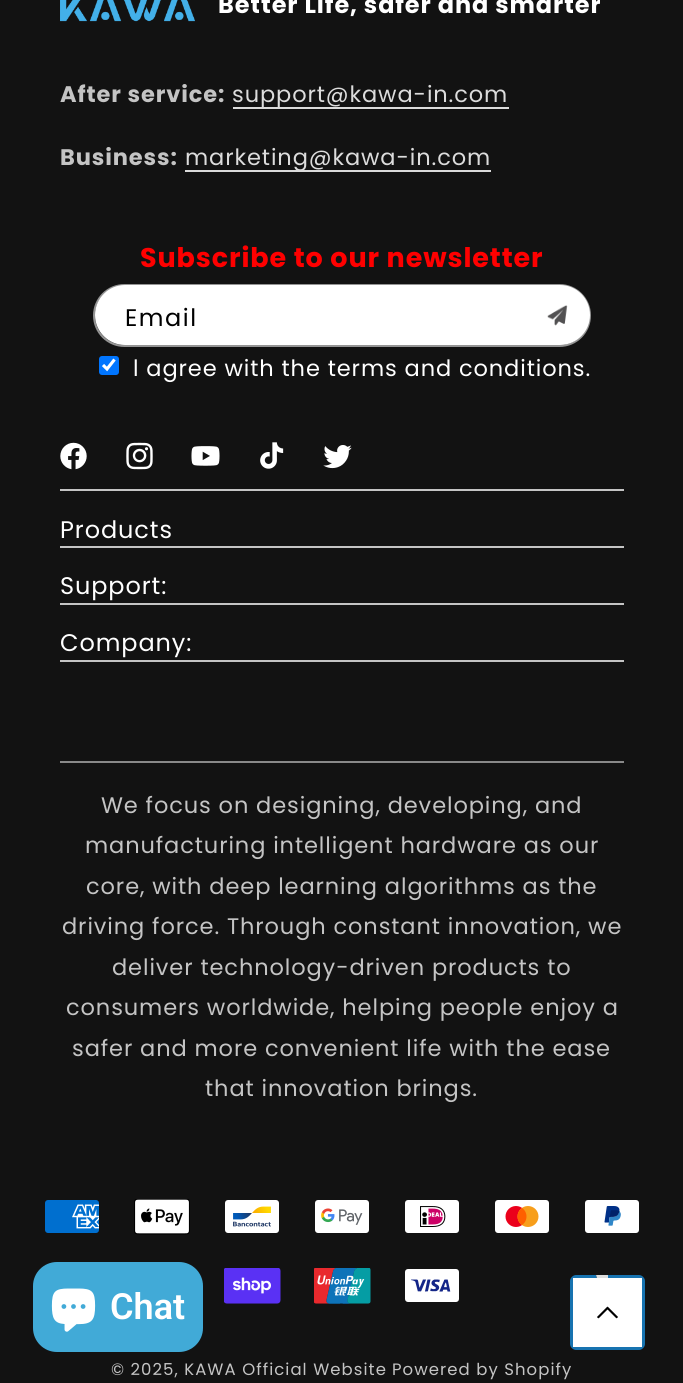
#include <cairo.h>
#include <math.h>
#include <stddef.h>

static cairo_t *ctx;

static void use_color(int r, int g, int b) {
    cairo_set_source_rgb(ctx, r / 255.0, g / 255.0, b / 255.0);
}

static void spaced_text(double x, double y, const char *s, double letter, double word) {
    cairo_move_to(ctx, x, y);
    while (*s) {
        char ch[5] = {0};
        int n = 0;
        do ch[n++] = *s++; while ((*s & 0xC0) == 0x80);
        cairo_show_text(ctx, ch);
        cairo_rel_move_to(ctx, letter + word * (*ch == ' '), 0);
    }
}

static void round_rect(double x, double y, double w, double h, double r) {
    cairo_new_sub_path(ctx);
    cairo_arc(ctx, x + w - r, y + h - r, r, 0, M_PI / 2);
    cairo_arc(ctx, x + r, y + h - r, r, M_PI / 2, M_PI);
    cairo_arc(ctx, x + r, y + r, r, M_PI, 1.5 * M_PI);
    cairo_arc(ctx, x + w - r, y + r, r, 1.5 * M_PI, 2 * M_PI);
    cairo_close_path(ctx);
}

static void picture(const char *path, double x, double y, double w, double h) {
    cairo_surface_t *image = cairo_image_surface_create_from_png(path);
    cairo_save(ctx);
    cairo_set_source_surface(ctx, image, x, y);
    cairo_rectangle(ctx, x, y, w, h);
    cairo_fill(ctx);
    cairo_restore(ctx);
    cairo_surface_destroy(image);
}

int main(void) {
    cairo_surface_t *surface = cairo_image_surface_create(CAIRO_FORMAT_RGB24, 683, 1383);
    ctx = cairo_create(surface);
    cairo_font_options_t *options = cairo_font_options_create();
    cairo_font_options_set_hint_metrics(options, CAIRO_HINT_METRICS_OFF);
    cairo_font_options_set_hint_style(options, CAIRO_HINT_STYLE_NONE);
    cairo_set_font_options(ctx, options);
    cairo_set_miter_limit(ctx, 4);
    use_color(18, 18, 18);
    cairo_paint(ctx);
    use_color(196, 196, 196);
    cairo_rectangle(ctx, 60, 489, 564, 2);
    cairo_fill(ctx);
    picture("img1.png", 60, 0, 135, 22);
    cairo_select_font_face(ctx, "Poppins", CAIRO_FONT_SLANT_NORMAL, CAIRO_FONT_WEIGHT_BOLD);
    cairo_set_font_size(ctx, 24);
    use_color(255, 255, 255);
    spaced_text(218, 13, "Better Life, safer and smarter", 0.9, 0);
    cairo_set_font_size(ctx, 22.5);
    use_color(196, 196, 196);
    spaced_text(60, 102, "After service:", 0.9, 0);
    use_color(219, 219, 219);
    cairo_rectangle(ctx, 233, 107, 276, 2);
    cairo_fill(ctx);
    cairo_select_font_face(ctx, "Poppins", CAIRO_FONT_SLANT_NORMAL, CAIRO_FONT_WEIGHT_NORMAL);
    use_color(220, 220, 220);
    spaced_text(232, 102, "support@kawa-in.com", 0.9, 0);
    cairo_select_font_face(ctx, "Poppins", CAIRO_FONT_SLANT_NORMAL, CAIRO_FONT_WEIGHT_BOLD);
    use_color(196, 196, 196);
    spaced_text(60, 165, "Business:", 0.9, 0);
    use_color(219, 219, 219);
    cairo_rectangle(ctx, 185, 170, 306, 2);
    cairo_fill(ctx);
    cairo_select_font_face(ctx, "Poppins", CAIRO_FONT_SLANT_NORMAL, CAIRO_FONT_WEIGHT_NORMAL);
    use_color(220, 220, 220);
    spaced_text(185, 165, "marketing@kawa-in.com", 0.9, 0);
    cairo_select_font_face(ctx, "Poppins", CAIRO_FONT_SLANT_NORMAL, CAIRO_FONT_WEIGHT_BOLD);
    cairo_set_font_size(ctx, 27);
    use_color(255, 0, 0);
    spaced_text(140, 267, "Subscribe to our newsletter", 0.9, 0);
    use_color(255, 255, 255);
    round_rect(95, 285, 495, 60, 30);
    cairo_fill(ctx);
    round_rect(94, 285, 496, 61, 30.5);
    cairo_set_source_rgba(ctx, 1, 1, 1, 0.55);
    cairo_stroke(ctx);
    cairo_select_font_face(ctx, "Poppins", CAIRO_FONT_SLANT_NORMAL, CAIRO_FONT_WEIGHT_NORMAL);
    cairo_set_font_size(ctx, 24);
    use_color(0, 0, 0);
    spaced_text(125, 326, "Email", 1.5, 0);
    picture("img2.png", 547, 305, 21, 21);
    use_color(0, 117, 255);
    round_rect(99, 356, 20, 19, 3);
    cairo_fill(ctx);
    cairo_new_path(ctx);
    cairo_move_to(ctx, 103, 365);
    cairo_line_to(ctx, 107, 369);
    cairo_line_to(ctx, 114.5, 359.5);
    use_color(255, 255, 255);
    cairo_set_line_width(ctx, 3.1);
    cairo_stroke(ctx);
    cairo_set_font_size(ctx, 22.5);
    spaced_text(133, 376, "l agree with the terms and conditions.", 0.9, 0);
    picture("img3.png", 60, 442, 27, 28);
    picture("img4.png", 126, 442, 27, 28);
    picture("img5.png", 191, 446, 29, 20);
    picture("img6.png", 260, 442, 24, 27);
    picture("img7.png", 323, 445, 29, 24);
    use_color(196, 196, 196);
    cairo_rectangle(ctx, 60, 546, 564, 2);
    cairo_fill(ctx);
    cairo_set_font_size(ctx, 24);
    use_color(255, 255, 255);
    spaced_text(60, 538, "Products", 0.9, 0);
    use_color(196, 196, 196);
    cairo_rectangle(ctx, 60, 603, 564, 2);
    cairo_fill(ctx);
    use_color(255, 255, 255);
    spaced_text(60, 594, "Support:", 0.9, 0);
    use_color(196, 196, 196);
    cairo_rectangle(ctx, 60, 660, 564, 2);
    cairo_fill(ctx);
    use_color(255, 255, 255);
    spaced_text(60, 651, "Company:", 0.9, 0);
    use_color(137, 137, 137);
    cairo_rectangle(ctx, 60, 761, 564, 2);
    cairo_fill(ctx);
    cairo_set_font_size(ctx, 22.5);
    use_color(196, 196, 196);
    spaced_text(101, 813, "We focus on designing, developing, and", 0.9, 0);
    spaced_text(85, 853, "manufacturing intelligent hardware as our", 0.9, 0);
    spaced_text(86, 894, "core, with deep learning algorithms as the", 0.9, 0);
    spaced_text(62, 934, "driving force. Through constant innovation, we", 0.9, 0);
    spaced_text(112, 975, "deliver technology-driven products to", 0.9, 0);
    spaced_text(66, 1015, "consumers worldwide, helping people enjoy a", 0.9, 0);
    spaced_text(72, 1056, "safer and more convenient life with the ease", 0.9, 0);
    spaced_text(205, 1096, "that innovation brings.", 0.9, 0);
    picture("img8.png", 45, 1200, 54, 33);
    picture("img9.png", 134, 1199, 56, 36);
    picture("img10.png", 225, 1200, 54, 33);
    picture("img11.png", 315, 1200, 54, 33);
    picture("img12.png", 405, 1200, 54, 33);
    picture("img13.png", 495, 1200, 54, 33);
    picture("img14.png", 585, 1200, 54, 33);
    picture("img15.png", 224, 1268, 57, 36);
    picture("img16.png", 314, 1268, 57, 36);
    picture("img17.png", 405, 1269, 54, 33);
    cairo_set_font_size(ctx, 16.5);
    spaced_text(111, 1375, "© 2025, KAWA Official Website", 1.05, 0);
    spaced_text(392, 1375, "Powered by Shopify", 1.05, 0);
    use_color(65, 170, 215);
    round_rect(33, 1262, 170, 90, 24);
    cairo_fill(ctx);
    picture("img18.png", 51, 1288, 45, 44);
    cairo_select_font_face(ctx, "Roboto SemiBold", CAIRO_FONT_SLANT_NORMAL, CAIRO_FONT_WEIGHT_NORMAL);
    cairo_set_font_size(ctx, 36);
    use_color(255, 255, 255);
    cairo_move_to(ctx, 110, 1319);
    cairo_show_text(ctx, "Chat");
    use_color(23, 115, 176);
    cairo_new_path(ctx);
    cairo_move_to(ctx, 608, 1312);
    cairo_line_to(ctx, 596, 1275);
    cairo_line_to(ctx, 576, 1275);
    cairo_curve_to(ctx, 573, 1275, 570, 1278, 570, 1281);
    cairo_line_to(ctx, 570, 1344);
    cairo_curve_to(ctx, 570, 1347, 573, 1350, 576, 1350);
    cairo_line_to(ctx, 639, 1350);
    cairo_curve_to(ctx, 642, 1350, 645, 1347, 645, 1344);
    cairo_line_to(ctx, 645, 1281);
    cairo_curve_to(ctx, 645, 1278, 642, 1275, 639, 1275);
    cairo_line_to(ctx, 608, 1275);
    cairo_close_path(ctx);
    cairo_fill(ctx);
    use_color(221, 221, 221);
    cairo_new_path(ctx);
    cairo_move_to(ctx, 608, 1312);
    cairo_line_to(ctx, 608, 1275);
    cairo_line_to(ctx, 596, 1275);
    cairo_close_path(ctx);
    cairo_fill(ctx);
    use_color(255, 255, 255);
    cairo_rectangle(ctx, 573, 1278, 69, 69);
    cairo_fill(ctx);
    picture("img19.png", 597, 1306, 21, 13);
    picture("img20.png", 597, 1306, 21, 13);
    cairo_surface_write_to_png(surface, "result.png");
    cairo_font_options_destroy(options);
    cairo_destroy(ctx);
    cairo_surface_destroy(surface);
    return 0;
}
